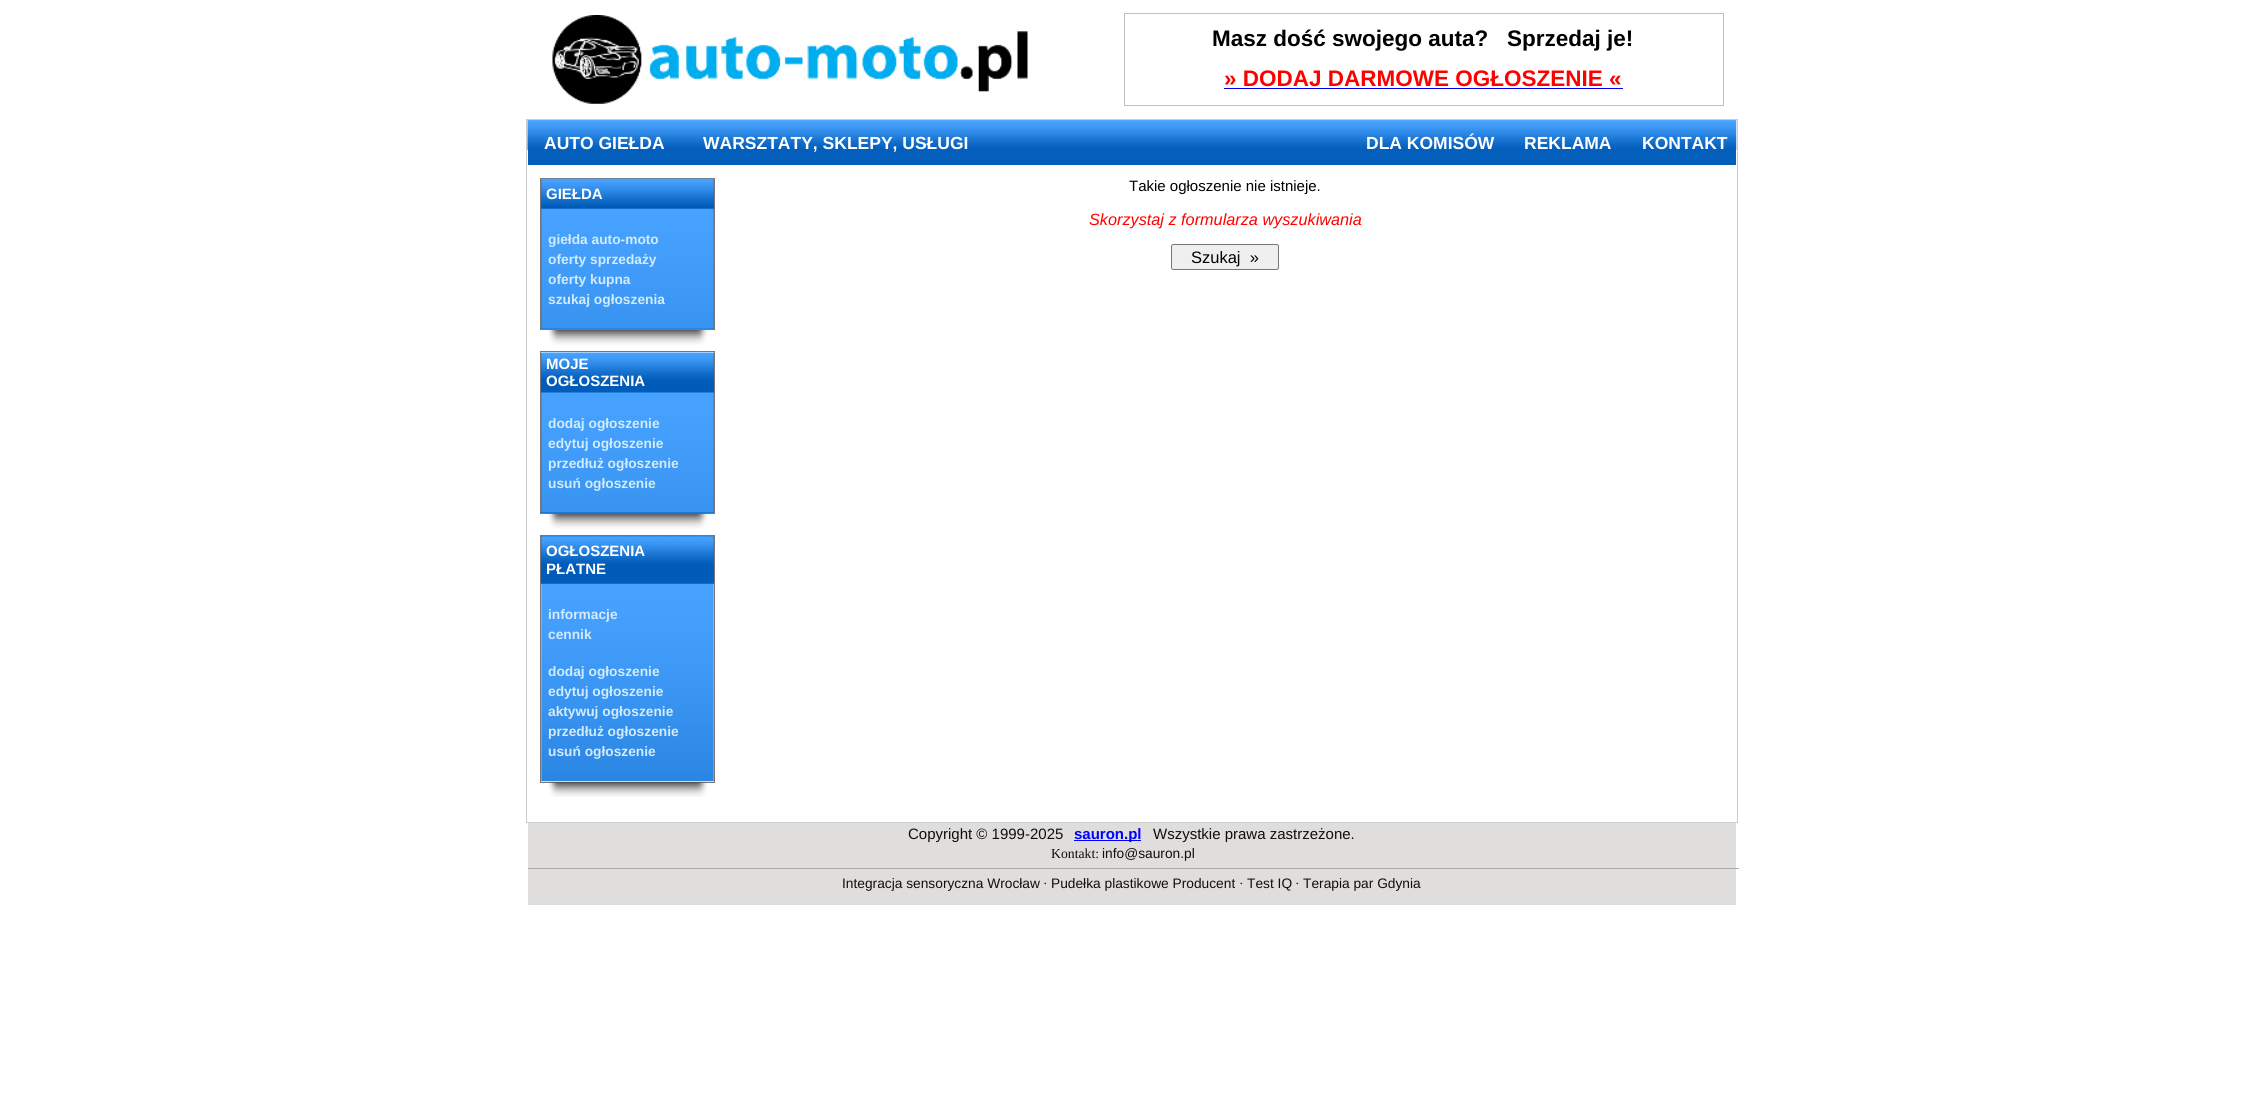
#include <cairo.h>
#include <math.h>
#include <stddef.h>

static cairo_t *ctx;

static void use_color(int r, int g, int b) {
    cairo_set_source_rgb(ctx, r / 255.0, g / 255.0, b / 255.0);
}

static void round_rect(double x, double y, double w, double h, double r) {
    cairo_new_sub_path(ctx);
    cairo_arc(ctx, x + w - r, y + h - r, r, 0, M_PI / 2);
    cairo_arc(ctx, x + r, y + h - r, r, M_PI / 2, M_PI);
    cairo_arc(ctx, x + r, y + r, r, M_PI, 1.5 * M_PI);
    cairo_arc(ctx, x + w - r, y + r, r, 1.5 * M_PI, 2 * M_PI);
    cairo_close_path(ctx);
}

static void picture(const char *path, double x, double y, double w, double h) {
    cairo_surface_t *image = cairo_image_surface_create_from_png(path);
    cairo_save(ctx);
    cairo_set_source_surface(ctx, image, x, y);
    cairo_rectangle(ctx, x, y, w, h);
    cairo_fill(ctx);
    cairo_restore(ctx);
    cairo_surface_destroy(image);
}

int main(void) {
    cairo_surface_t *surface = cairo_image_surface_create(CAIRO_FORMAT_RGB24, 2262, 1106);
    ctx = cairo_create(surface);
    cairo_font_options_t *options = cairo_font_options_create();
    cairo_font_options_set_hint_metrics(options, CAIRO_HINT_METRICS_OFF);
    cairo_font_options_set_hint_style(options, CAIRO_HINT_STYLE_NONE);
    cairo_set_font_options(ctx, options);
    cairo_set_miter_limit(ctx, 4);
    use_color(255, 255, 255);
    cairo_paint(ctx);
    picture("img1.png", 552, 15, 476, 89);
    cairo_rectangle(ctx, 1124.5, 13.5, 599, 92);
    use_color(192, 192, 192);
    cairo_set_line_width(ctx, 1);
    cairo_stroke(ctx);
    cairo_select_font_face(ctx, "Liberation Sans", CAIRO_FONT_SLANT_NORMAL, CAIRO_FONT_WEIGHT_BOLD);
    cairo_set_font_size(ctx, 22.5);
    use_color(0, 0, 0);
    cairo_move_to(ctx, 1212, 46);
    cairo_show_text(ctx, "Masz dość swojego auta?   Sprzedaj je!");
    use_color(255, 0, 0);
    cairo_move_to(ctx, 1224, 86);
    cairo_show_text(ctx, "» DODAJ DARMOWE OGŁOSZENIE «");
    use_color(0, 0, 238);
    cairo_rectangle(ctx, 1224, 88, 399, 1);
    cairo_fill(ctx);
    cairo_rectangle(ctx, 526.5, 119.5, 1211, 703);
    use_color(203, 204, 204);
    cairo_stroke(ctx);
    use_color(4, 95, 188);
    cairo_rectangle(ctx, 528, 150, 1208, 15);
    cairo_fill(ctx);
    picture("img2.png", 527, 120, 1210, 30);
    cairo_set_font_size(ctx, 17.5);
    use_color(255, 255, 255);
    cairo_move_to(ctx, 544, 149);
    cairo_show_text(ctx, "AUTO GIEŁDA");
    cairo_move_to(ctx, 703, 149);
    cairo_show_text(ctx, "WARSZTATY, SKLEPY, USŁUGI");
    cairo_move_to(ctx, 1366, 149);
    cairo_show_text(ctx, "DLA KOMISÓW");
    cairo_move_to(ctx, 1524, 149);
    cairo_show_text(ctx, "REKLAMA");
    cairo_move_to(ctx, 1642, 149);
    cairo_show_text(ctx, "KONTAKT");
    cairo_rectangle(ctx, 540.5, 178.5, 174, 151);
    use_color(119, 119, 119);
    cairo_stroke(ctx);
    use_color(0, 92, 184);
    cairo_rectangle(ctx, 541, 179, 173, 150);
    cairo_fill(ctx);
    picture("img3.png", 541, 178, 173, 27);
    cairo_set_font_size(ctx, 15);
    use_color(255, 255, 255);
    cairo_move_to(ctx, 546, 199);
    cairo_show_text(ctx, "GIEŁDA");
    picture("img4.png", 541, 208, 173, 121);
    cairo_set_font_size(ctx, 13.75);
    use_color(210, 235, 253);
    cairo_move_to(ctx, 548, 244);
    cairo_show_text(ctx, "giełda auto-moto");
    cairo_move_to(ctx, 548, 264);
    cairo_show_text(ctx, "oferty sprzedaży");
    cairo_move_to(ctx, 548, 284);
    cairo_show_text(ctx, "oferty kupna");
    cairo_move_to(ctx, 548, 304);
    cairo_show_text(ctx, "szukaj ogłoszenia");
    picture("img5.png", 548, 330, 160, 15);
    cairo_rectangle(ctx, 540.5, 351.5, 174, 162);
    use_color(119, 119, 119);
    cairo_stroke(ctx);
    use_color(0, 92, 184);
    cairo_rectangle(ctx, 541, 353, 173, 160);
    cairo_fill(ctx);
    picture("img6.png", 541, 352, 173, 27);
    cairo_set_font_size(ctx, 15);
    use_color(255, 255, 255);
    cairo_move_to(ctx, 546, 369);
    cairo_show_text(ctx, "MOJE");
    cairo_move_to(ctx, 546, 386);
    cairo_show_text(ctx, "OGŁOSZENIA");
    picture("img7.png", 541, 392, 173, 121);
    cairo_set_font_size(ctx, 13.75);
    use_color(210, 235, 253);
    cairo_move_to(ctx, 548, 428);
    cairo_show_text(ctx, "dodaj ogłoszenie");
    cairo_move_to(ctx, 548, 448);
    cairo_show_text(ctx, "edytuj ogłoszenie");
    cairo_move_to(ctx, 548, 468);
    cairo_show_text(ctx, "przedłuż ogłoszenie");
    cairo_move_to(ctx, 548, 488);
    cairo_show_text(ctx, "usuń ogłoszenie");
    picture("img8.png", 548, 513, 160, 16);
    cairo_rectangle(ctx, 540.5, 535.5, 174, 247);
    use_color(119, 119, 119);
    cairo_stroke(ctx);
    use_color(0, 92, 184);
    cairo_rectangle(ctx, 541, 536, 173, 48);
    cairo_fill(ctx);
    picture("img9.png", 541, 536, 173, 27);
    cairo_set_font_size(ctx, 15);
    use_color(255, 255, 255);
    cairo_move_to(ctx, 546, 556);
    cairo_show_text(ctx, "OGŁOSZENIA");
    cairo_move_to(ctx, 546, 574);
    cairo_show_text(ctx, "PŁATNE");
    picture("img10.png", 541, 583, 173, 199);
    cairo_set_font_size(ctx, 13.75);
    use_color(210, 235, 253);
    cairo_move_to(ctx, 548, 619);
    cairo_show_text(ctx, "informacje");
    cairo_move_to(ctx, 548, 639);
    cairo_show_text(ctx, "cennik");
    cairo_move_to(ctx, 548, 676);
    cairo_show_text(ctx, "dodaj ogłoszenie");
    cairo_move_to(ctx, 548, 696);
    cairo_show_text(ctx, "edytuj ogłoszenie");
    cairo_move_to(ctx, 548, 716);
    cairo_show_text(ctx, "aktywuj ogłoszenie");
    cairo_move_to(ctx, 548, 736);
    cairo_show_text(ctx, "przedłuż ogłoszenie");
    cairo_move_to(ctx, 548, 756);
    cairo_show_text(ctx, "usuń ogłoszenie");
    picture("img11.png", 548, 782, 160, 15);
    cairo_select_font_face(ctx, "Liberation Sans", CAIRO_FONT_SLANT_NORMAL, CAIRO_FONT_WEIGHT_NORMAL);
    cairo_set_font_size(ctx, 15);
    use_color(0, 0, 0);
    cairo_move_to(ctx, 1129, 191);
    cairo_show_text(ctx, "Takie ogłoszenie nie istnieje.");
    cairo_select_font_face(ctx, "Liberation Sans", CAIRO_FONT_SLANT_ITALIC, CAIRO_FONT_WEIGHT_NORMAL);
    cairo_set_font_size(ctx, 16.25);
    use_color(255, 0, 0);
    cairo_move_to(ctx, 1089, 225);
    cairo_show_text(ctx, "Skorzystaj z formularza wyszukiwania");
    use_color(239, 239, 239);
    round_rect(1171.5, 244.5, 107, 25, 2);
    cairo_fill_preserve(ctx);
    use_color(118, 118, 118);
    cairo_stroke(ctx);
    cairo_select_font_face(ctx, "Liberation Sans", CAIRO_FONT_SLANT_NORMAL, CAIRO_FONT_WEIGHT_NORMAL);
    cairo_set_font_size(ctx, 16.5);
    use_color(0, 0, 0);
    cairo_move_to(ctx, 1191, 263);
    cairo_show_text(ctx, "Szukaj  »");
    use_color(224, 222, 220);
    cairo_rectangle(ctx, 528, 823, 1208, 82);
    cairo_fill(ctx);
    cairo_set_font_size(ctx, 15);
    use_color(15, 15, 15);
    cairo_move_to(ctx, 908, 839);
    cairo_show_text(ctx, "Copyright © 1999-2025");
    use_color(0, 0, 255);
    cairo_rectangle(ctx, 1074, 840, 67, 1);
    cairo_fill(ctx);
    cairo_select_font_face(ctx, "Liberation Sans", CAIRO_FONT_SLANT_NORMAL, CAIRO_FONT_WEIGHT_BOLD);
    cairo_move_to(ctx, 1074, 839);
    cairo_show_text(ctx, "sauron.pl");
    cairo_select_font_face(ctx, "Liberation Sans", CAIRO_FONT_SLANT_NORMAL, CAIRO_FONT_WEIGHT_NORMAL);
    use_color(15, 15, 15);
    cairo_move_to(ctx, 1153, 839);
    cairo_show_text(ctx, "Wszystkie prawa zastrzeżone.");
    cairo_select_font_face(ctx, "Liberation Serif", CAIRO_FONT_SLANT_NORMAL, CAIRO_FONT_WEIGHT_NORMAL);
    cairo_set_font_size(ctx, 13.75);
    cairo_move_to(ctx, 1051, 858);
    cairo_show_text(ctx, "Kontakt:");
    cairo_select_font_face(ctx, "Liberation Sans", CAIRO_FONT_SLANT_NORMAL, CAIRO_FONT_WEIGHT_NORMAL);
    cairo_move_to(ctx, 1102, 858);
    cairo_show_text(ctx, "info@sauron.pl");
    use_color(170, 170, 170);
    cairo_rectangle(ctx, 528, 868, 1211, 1);
    cairo_fill(ctx);
    use_color(15, 15, 15);
    cairo_move_to(ctx, 842, 888);
    cairo_show_text(ctx, "Integracja sensoryczna Wrocław");
    cairo_select_font_face(ctx, "Liberation Serif", CAIRO_FONT_SLANT_NORMAL, CAIRO_FONT_WEIGHT_NORMAL);
    cairo_move_to(ctx, 1043, 888);
    cairo_show_text(ctx, "·");
    cairo_select_font_face(ctx, "Liberation Sans", CAIRO_FONT_SLANT_NORMAL, CAIRO_FONT_WEIGHT_NORMAL);
    cairo_move_to(ctx, 1051, 888);
    cairo_show_text(ctx, "Pudełka plastikowe Producent");
    cairo_select_font_face(ctx, "Liberation Serif", CAIRO_FONT_SLANT_NORMAL, CAIRO_FONT_WEIGHT_NORMAL);
    cairo_move_to(ctx, 1239, 888);
    cairo_show_text(ctx, "·");
    cairo_select_font_face(ctx, "Liberation Sans", CAIRO_FONT_SLANT_NORMAL, CAIRO_FONT_WEIGHT_NORMAL);
    cairo_move_to(ctx, 1247, 888);
    cairo_show_text(ctx, "Test IQ");
    cairo_select_font_face(ctx, "Liberation Serif", CAIRO_FONT_SLANT_NORMAL, CAIRO_FONT_WEIGHT_NORMAL);
    cairo_move_to(ctx, 1295, 888);
    cairo_show_text(ctx, "·");
    cairo_select_font_face(ctx, "Liberation Sans", CAIRO_FONT_SLANT_NORMAL, CAIRO_FONT_WEIGHT_NORMAL);
    cairo_move_to(ctx, 1303, 888);
    cairo_show_text(ctx, "Terapia par Gdynia");
    cairo_surface_write_to_png(surface, "result.png");
    cairo_font_options_destroy(options);
    cairo_destroy(ctx);
    cairo_surface_destroy(surface);
    return 0;
}
